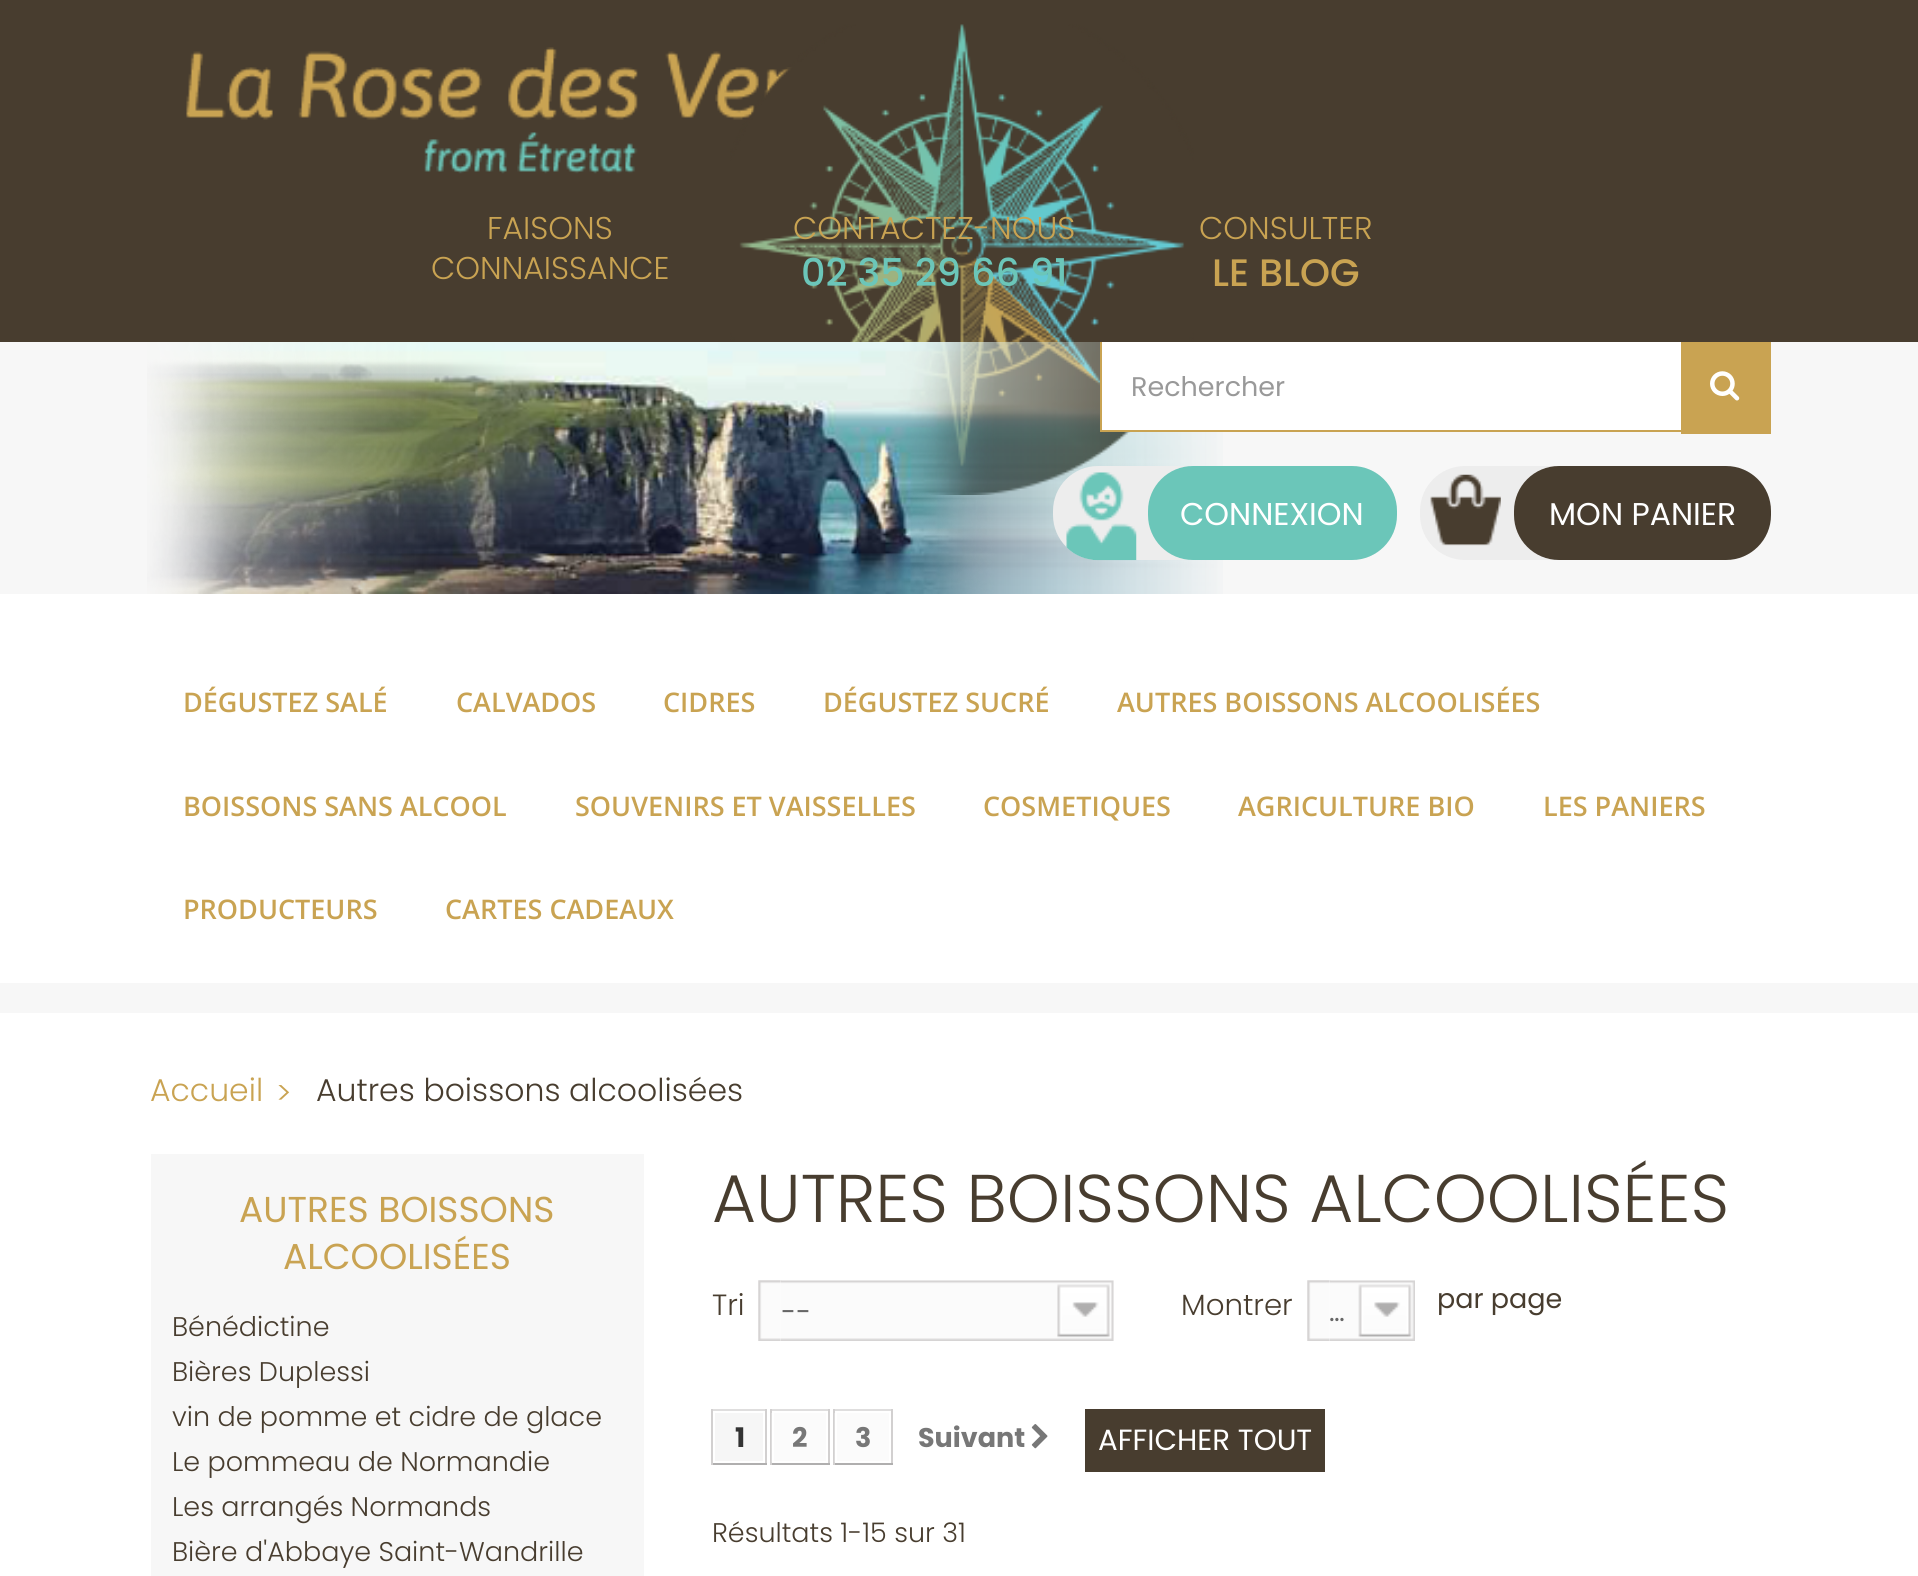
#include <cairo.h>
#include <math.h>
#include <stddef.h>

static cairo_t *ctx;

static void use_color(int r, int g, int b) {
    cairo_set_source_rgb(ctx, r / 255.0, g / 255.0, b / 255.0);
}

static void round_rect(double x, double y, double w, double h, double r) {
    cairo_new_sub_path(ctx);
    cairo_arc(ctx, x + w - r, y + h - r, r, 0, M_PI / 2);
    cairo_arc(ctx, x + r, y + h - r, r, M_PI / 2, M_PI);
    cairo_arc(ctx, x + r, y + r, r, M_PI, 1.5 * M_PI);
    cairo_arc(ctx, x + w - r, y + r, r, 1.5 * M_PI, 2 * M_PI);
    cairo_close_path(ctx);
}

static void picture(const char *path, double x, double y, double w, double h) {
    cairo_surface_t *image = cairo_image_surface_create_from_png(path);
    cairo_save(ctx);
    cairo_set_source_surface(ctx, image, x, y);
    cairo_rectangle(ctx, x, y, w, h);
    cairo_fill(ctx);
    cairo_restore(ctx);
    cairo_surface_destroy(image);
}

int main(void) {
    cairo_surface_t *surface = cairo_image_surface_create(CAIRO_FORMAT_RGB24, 1918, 1576);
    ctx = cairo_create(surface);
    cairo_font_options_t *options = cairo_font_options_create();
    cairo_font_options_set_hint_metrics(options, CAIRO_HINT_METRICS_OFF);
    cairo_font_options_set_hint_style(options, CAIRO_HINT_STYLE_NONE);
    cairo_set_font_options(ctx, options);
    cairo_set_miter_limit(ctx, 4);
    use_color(255, 255, 255);
    cairo_paint(ctx);
    use_color(247, 247, 247);
    cairo_rectangle(ctx, 0, 983, 1918, 30);
    cairo_fill(ctx);
    use_color(72, 61, 47);
    cairo_rectangle(ctx, 0, 0, 1918, 342);
    cairo_fill(ctx);
    picture("img1.png", 186, 47, 607, 127);
    use_color(247, 247, 247);
    cairo_rectangle(ctx, 0, 342, 1918, 252);
    cairo_fill(ctx);
    picture("img2.png", 730, 24, 464, 471);
    cairo_select_font_face(ctx, "Poppins Light", CAIRO_FONT_SLANT_NORMAL, CAIRO_FONT_WEIGHT_NORMAL);
    cairo_set_font_size(ctx, 31.5);
    use_color(201, 163, 82);
    cairo_move_to(ctx, 487, 239);
    cairo_show_text(ctx, "FAISONS");
    cairo_move_to(ctx, 431, 279);
    cairo_show_text(ctx, "CONNAISSANCE");
    cairo_move_to(ctx, 793, 239);
    cairo_show_text(ctx, "CONTACTEZ-NOUS");
    cairo_select_font_face(ctx, "Poppins Medium", CAIRO_FONT_SLANT_NORMAL, CAIRO_FONT_WEIGHT_NORMAL);
    cairo_set_font_size(ctx, 38.25);
    use_color(107, 198, 185);
    cairo_move_to(ctx, 801, 286);
    cairo_show_text(ctx, "02 35 29 66 91");
    cairo_select_font_face(ctx, "Poppins Light", CAIRO_FONT_SLANT_NORMAL, CAIRO_FONT_WEIGHT_NORMAL);
    cairo_set_font_size(ctx, 31.5);
    use_color(201, 163, 82);
    cairo_move_to(ctx, 1199, 239);
    cairo_show_text(ctx, "CONSULTER");
    cairo_select_font_face(ctx, "Poppins Medium", CAIRO_FONT_SLANT_NORMAL, CAIRO_FONT_WEIGHT_NORMAL);
    cairo_set_font_size(ctx, 38.25);
    cairo_move_to(ctx, 1212, 286);
    cairo_show_text(ctx, "LE BLOG");
    picture("img3.png", 147, 342, 1076, 252);
    use_color(255, 255, 255);
    cairo_rectangle(ctx, 1102, 342, 579, 88);
    cairo_fill(ctx);
    use_color(201, 163, 82);
    cairo_rectangle(ctx, 1100, 430, 581, 2);
    cairo_fill(ctx);
    cairo_rectangle(ctx, 1100, 342, 2, 90);
    cairo_fill(ctx);
    cairo_select_font_face(ctx, "Poppins", CAIRO_FONT_SLANT_NORMAL, CAIRO_FONT_WEIGHT_NORMAL);
    cairo_set_font_size(ctx, 27);
    use_color(153, 153, 153);
    cairo_move_to(ctx, 1131, 396);
    cairo_show_text(ctx, "Rechercher");
    use_color(201, 163, 82);
    cairo_rectangle(ctx, 1681, 342, 90, 92);
    cairo_fill(ctx);
    picture("img4.png", 1710, 371, 30, 30);
    use_color(237, 237, 237);
    round_rect(1053, 466, 344, 94, 45);
    cairo_fill(ctx);
    picture("img5.png", 1066, 472, 71, 89);
    use_color(107, 198, 185);
    round_rect(1148, 466, 249, 94, 45);
    cairo_fill(ctx);
    cairo_set_font_size(ctx, 31.5);
    use_color(255, 255, 255);
    cairo_move_to(ctx, 1180, 525);
    cairo_show_text(ctx, "CONNEXION");
    use_color(237, 237, 237);
    round_rect(1420, 466, 351, 94, 45);
    cairo_fill(ctx);
    picture("img6.png", 1430, 474, 71, 72);
    use_color(72, 61, 47);
    round_rect(1514, 466, 257, 94, 45);
    cairo_fill(ctx);
    use_color(255, 255, 255);
    cairo_move_to(ctx, 1549, 525);
    cairo_show_text(ctx, "MON PANIER");
    cairo_select_font_face(ctx, "Open Sans SemiBold", CAIRO_FONT_SLANT_NORMAL, CAIRO_FONT_WEIGHT_NORMAL);
    cairo_set_font_size(ctx, 27);
    use_color(201, 163, 82);
    cairo_move_to(ctx, 183, 712);
    cairo_show_text(ctx, "DÉGUSTEZ SALÉ");
    cairo_move_to(ctx, 456, 712);
    cairo_show_text(ctx, "CALVADOS");
    cairo_move_to(ctx, 663, 712);
    cairo_show_text(ctx, "CIDRES");
    cairo_move_to(ctx, 823, 712);
    cairo_show_text(ctx, "DÉGUSTEZ SUCRÉ");
    cairo_move_to(ctx, 1117, 712);
    cairo_show_text(ctx, "AUTRES BOISSONS ALCOOLISÉES");
    cairo_move_to(ctx, 183, 816);
    cairo_show_text(ctx, "BOISSONS SANS ALCOOL");
    cairo_move_to(ctx, 575, 816);
    cairo_show_text(ctx, "SOUVENIRS ET VAISSELLES");
    cairo_move_to(ctx, 983, 816);
    cairo_show_text(ctx, "COSMETIQUES");
    cairo_move_to(ctx, 1238, 816);
    cairo_show_text(ctx, "AGRICULTURE BIO");
    cairo_move_to(ctx, 1543, 816);
    cairo_show_text(ctx, "LES PANIERS");
    cairo_move_to(ctx, 183, 919);
    cairo_show_text(ctx, "PRODUCTEURS");
    cairo_move_to(ctx, 445, 919);
    cairo_show_text(ctx, "CARTES CADEAUX");
    cairo_select_font_face(ctx, "Poppins Light", CAIRO_FONT_SLANT_NORMAL, CAIRO_FONT_WEIGHT_NORMAL);
    cairo_set_font_size(ctx, 31.5);
    cairo_move_to(ctx, 150, 1101);
    cairo_show_text(ctx, "Accueil");
    cairo_move_to(ctx, 276, 1104);
    cairo_show_text(ctx, ">");
    use_color(72, 61, 47);
    cairo_move_to(ctx, 316, 1101);
    cairo_show_text(ctx, "Autres boissons alcoolisées");
    use_color(247, 247, 247);
    cairo_rectangle(ctx, 151, 1154, 493, 422);
    cairo_fill(ctx);
    cairo_select_font_face(ctx, "Poppins", CAIRO_FONT_SLANT_NORMAL, CAIRO_FONT_WEIGHT_NORMAL);
    cairo_set_font_size(ctx, 36);
    use_color(201, 163, 82);
    cairo_move_to(ctx, 239, 1222);
    cairo_show_text(ctx, "AUTRES BOISSONS");
    cairo_move_to(ctx, 283, 1269);
    cairo_show_text(ctx, "ALCOOLISÉES");
    cairo_select_font_face(ctx, "Poppins Light", CAIRO_FONT_SLANT_NORMAL, CAIRO_FONT_WEIGHT_NORMAL);
    cairo_set_font_size(ctx, 27);
    use_color(72, 61, 47);
    cairo_move_to(ctx, 172, 1336);
    cairo_show_text(ctx, "Bénédictine");
    cairo_move_to(ctx, 172, 1381);
    cairo_show_text(ctx, "Bières Duplessi");
    cairo_move_to(ctx, 172, 1426);
    cairo_show_text(ctx, "vin de pomme et cidre de glace");
    cairo_move_to(ctx, 172, 1471);
    cairo_show_text(ctx, "Le pommeau de Normandie");
    cairo_move_to(ctx, 172, 1516);
    cairo_show_text(ctx, "Les arrangés Normands");
    cairo_move_to(ctx, 172, 1561);
    cairo_show_text(ctx, "Bière d'Abbaye Saint-Wandrille");
    cairo_set_font_size(ctx, 67.5);
    cairo_move_to(ctx, 712, 1222);
    cairo_show_text(ctx, "AUTRES BOISSONS ALCOOLISÉES");
    cairo_set_font_size(ctx, 29.25);
    cairo_move_to(ctx, 712, 1315);
    cairo_show_text(ctx, "Tri");
    picture("img7.png", 758, 1280, 24, 61);
    picture("img8.png", 780, 1280, 334, 61);
    cairo_select_font_face(ctx, "Poppins", CAIRO_FONT_SLANT_NORMAL, CAIRO_FONT_WEIGHT_NORMAL);
    cairo_set_font_size(ctx, 27);
    use_color(102, 102, 102);
    cairo_move_to(ctx, 781, 1321);
    cairo_show_text(ctx, "--");
    cairo_select_font_face(ctx, "Poppins Light", CAIRO_FONT_SLANT_NORMAL, CAIRO_FONT_WEIGHT_NORMAL);
    cairo_set_font_size(ctx, 29.25);
    use_color(72, 61, 47);
    cairo_move_to(ctx, 1181, 1315);
    cairo_show_text(ctx, "Montrer");
    cairo_select_font_face(ctx, "Poppins", CAIRO_FONT_SLANT_NORMAL, CAIRO_FONT_WEIGHT_NORMAL);
    cairo_set_font_size(ctx, 27);
    cairo_move_to(ctx, 1437, 1308);
    cairo_show_text(ctx, "par page");
    picture("img9.png", 1307, 1280, 24, 61);
    picture("img10.png", 1329, 1280, 86, 61);
    use_color(102, 102, 102);
    cairo_move_to(ctx, 1329, 1321);
    cairo_show_text(ctx, "…");
    use_color(223, 222, 222);
    cairo_rectangle(ctx, 711, 1409, 56, 2);
    cairo_fill(ctx);
    use_color(210, 208, 208);
    cairo_rectangle(ctx, 765, 1409, 2, 56);
    cairo_fill(ctx);
    use_color(176, 175, 175);
    cairo_rectangle(ctx, 711, 1463, 56, 2);
    cairo_fill(ctx);
    use_color(210, 208, 208);
    cairo_rectangle(ctx, 711, 1409, 2, 56);
    cairo_fill(ctx);
    use_color(246, 246, 246);
    cairo_rectangle(ctx, 715, 1413, 48, 48);
    cairo_fill(ctx);
    cairo_select_font_face(ctx, "Poppins", CAIRO_FONT_SLANT_NORMAL, CAIRO_FONT_WEIGHT_BOLD);
    use_color(51, 51, 51);
    cairo_move_to(ctx, 735, 1447);
    cairo_show_text(ctx, "1");
    use_color(223, 222, 222);
    cairo_rectangle(ctx, 770, 1409, 60, 2);
    cairo_fill(ctx);
    use_color(210, 208, 208);
    cairo_rectangle(ctx, 828, 1409, 2, 56);
    cairo_fill(ctx);
    use_color(176, 175, 175);
    cairo_rectangle(ctx, 770, 1463, 60, 2);
    cairo_fill(ctx);
    use_color(210, 208, 208);
    cairo_rectangle(ctx, 770, 1409, 2, 56);
    cairo_fill(ctx);
    use_color(251, 251, 251);
    cairo_rectangle(ctx, 774, 1413, 52, 48);
    cairo_fill(ctx);
    picture("img11.png", 771, 1413, 1, 50);
    use_color(119, 119, 119);
    cairo_move_to(ctx, 792, 1447);
    cairo_show_text(ctx, "2");
    use_color(223, 222, 222);
    cairo_rectangle(ctx, 833, 1409, 60, 2);
    cairo_fill(ctx);
    use_color(210, 208, 208);
    cairo_rectangle(ctx, 891, 1409, 2, 56);
    cairo_fill(ctx);
    use_color(176, 175, 175);
    cairo_rectangle(ctx, 833, 1463, 60, 2);
    cairo_fill(ctx);
    use_color(210, 208, 208);
    cairo_rectangle(ctx, 833, 1409, 2, 56);
    cairo_fill(ctx);
    use_color(251, 251, 251);
    cairo_rectangle(ctx, 837, 1413, 52, 48);
    cairo_fill(ctx);
    picture("img11.png", 834, 1413, 1, 50);
    use_color(119, 119, 119);
    cairo_move_to(ctx, 855, 1447);
    cairo_show_text(ctx, "3");
    cairo_move_to(ctx, 918, 1447);
    cairo_show_text(ctx, "Suivant");
    picture("img12.png", 1031, 1424, 17, 25);
    use_color(72, 61, 47);
    cairo_rectangle(ctx, 1085, 1409, 240, 63);
    cairo_fill(ctx);
    cairo_select_font_face(ctx, "Poppins", CAIRO_FONT_SLANT_NORMAL, CAIRO_FONT_WEIGHT_NORMAL);
    cairo_set_font_size(ctx, 29.25);
    use_color(255, 255, 255);
    cairo_move_to(ctx, 1098, 1450);
    cairo_show_text(ctx, "AFFICHER TOUT");
    cairo_select_font_face(ctx, "Poppins Light", CAIRO_FONT_SLANT_NORMAL, CAIRO_FONT_WEIGHT_NORMAL);
    cairo_set_font_size(ctx, 27);
    use_color(72, 61, 47);
    cairo_move_to(ctx, 712, 1542);
    cairo_show_text(ctx, "Résultats 1-15 sur 31");
    cairo_surface_write_to_png(surface, "result.png");
    cairo_font_options_destroy(options);
    cairo_destroy(ctx);
    cairo_surface_destroy(surface);
    return 0;
}
